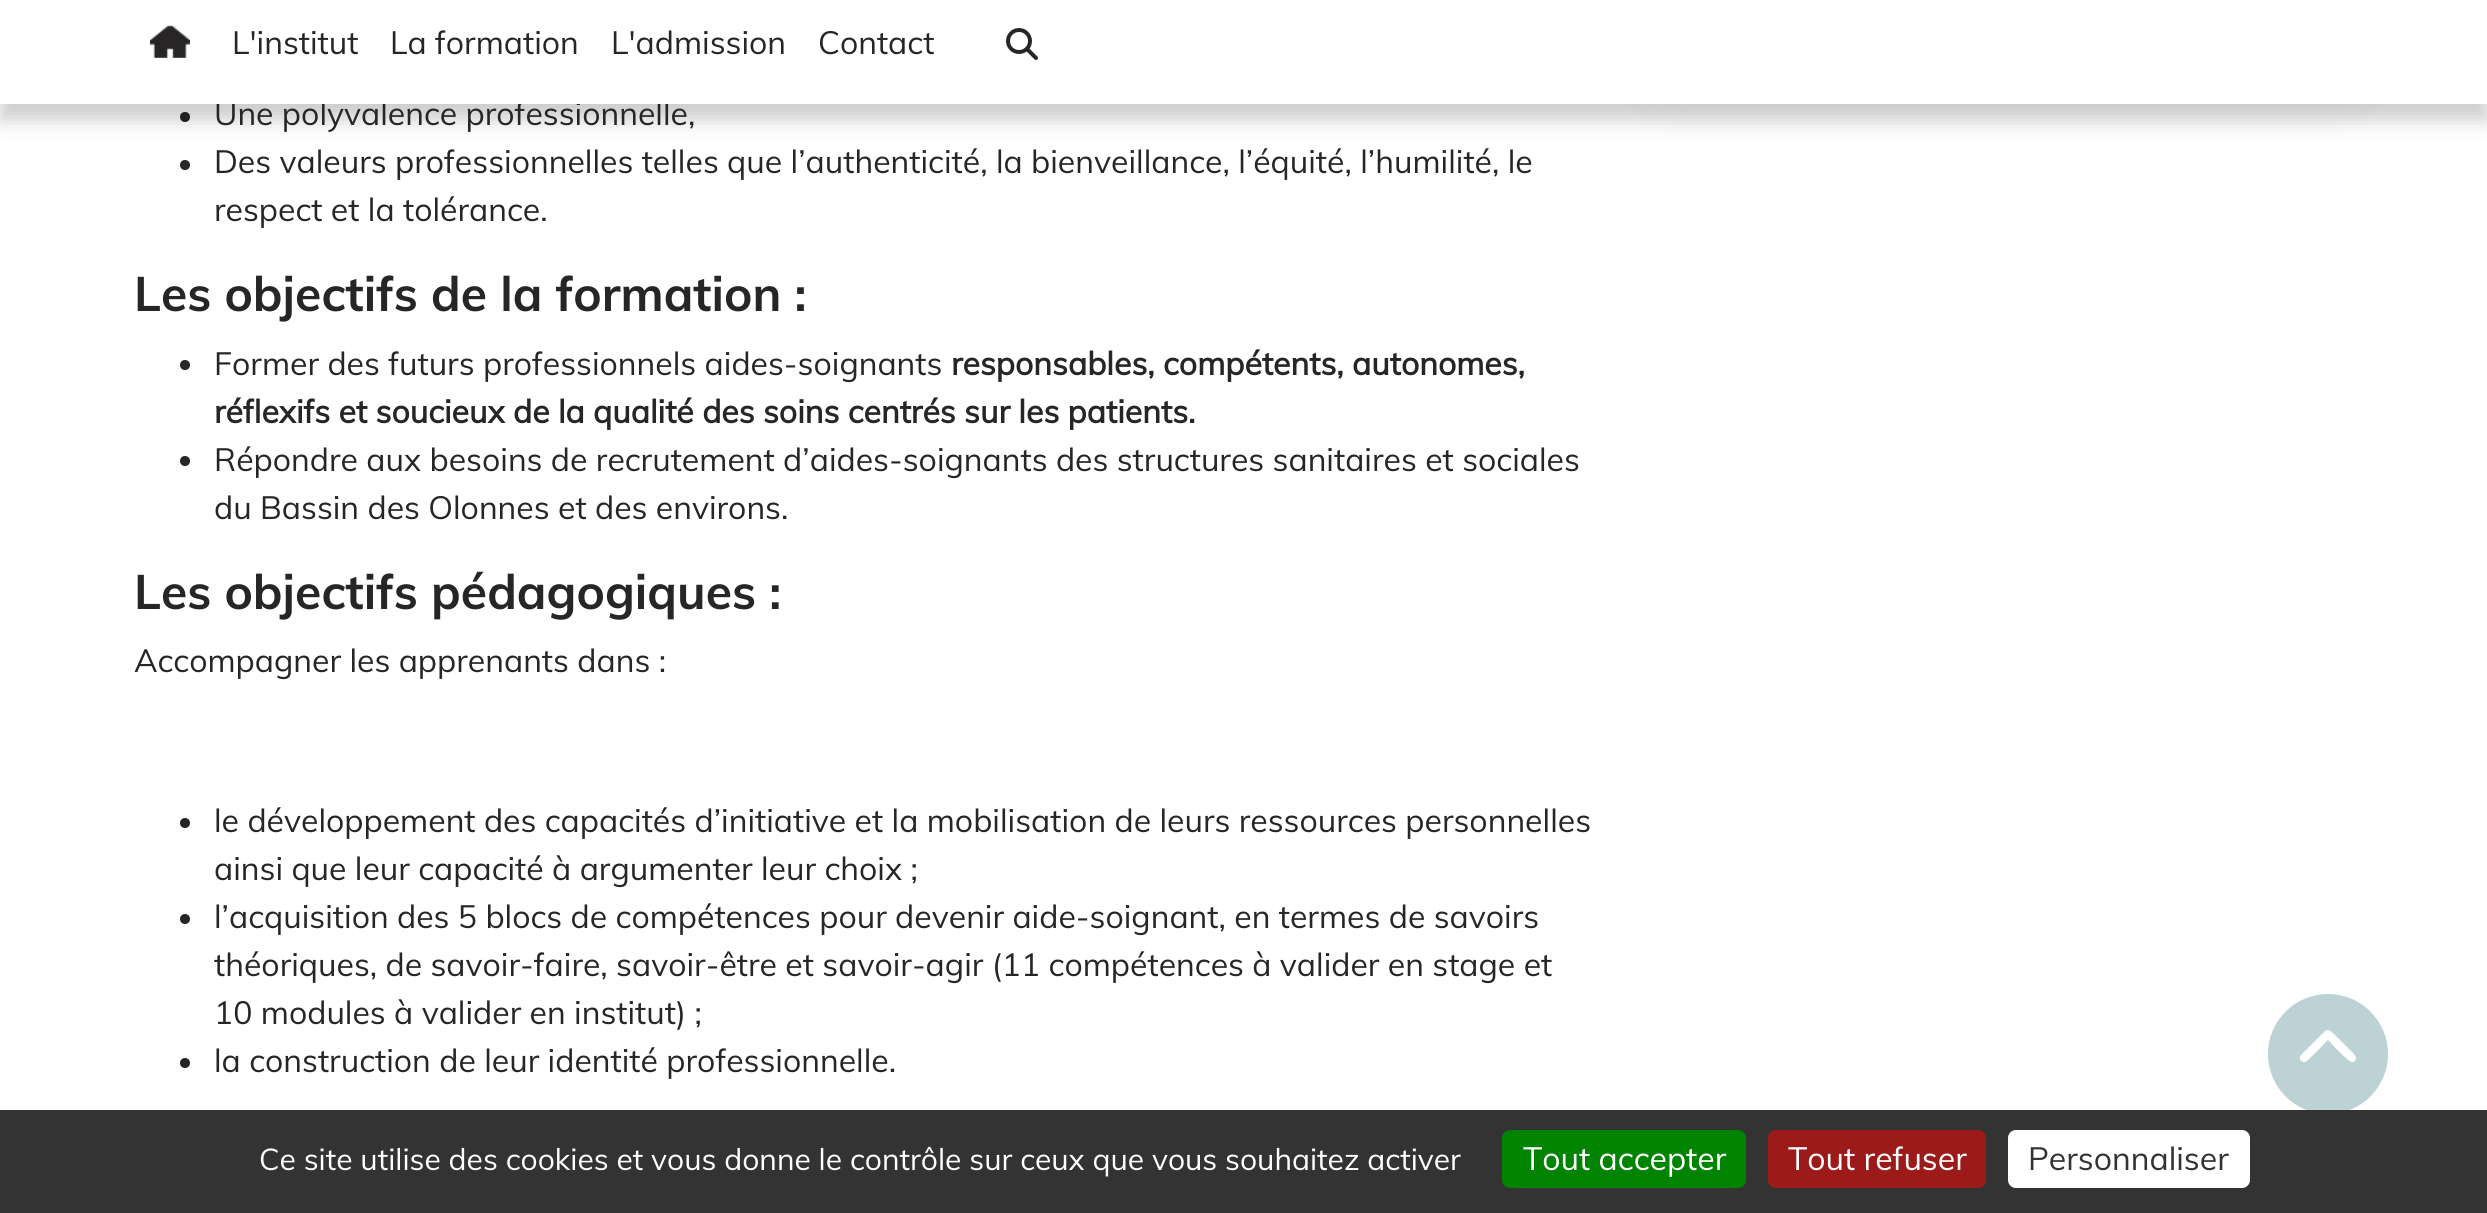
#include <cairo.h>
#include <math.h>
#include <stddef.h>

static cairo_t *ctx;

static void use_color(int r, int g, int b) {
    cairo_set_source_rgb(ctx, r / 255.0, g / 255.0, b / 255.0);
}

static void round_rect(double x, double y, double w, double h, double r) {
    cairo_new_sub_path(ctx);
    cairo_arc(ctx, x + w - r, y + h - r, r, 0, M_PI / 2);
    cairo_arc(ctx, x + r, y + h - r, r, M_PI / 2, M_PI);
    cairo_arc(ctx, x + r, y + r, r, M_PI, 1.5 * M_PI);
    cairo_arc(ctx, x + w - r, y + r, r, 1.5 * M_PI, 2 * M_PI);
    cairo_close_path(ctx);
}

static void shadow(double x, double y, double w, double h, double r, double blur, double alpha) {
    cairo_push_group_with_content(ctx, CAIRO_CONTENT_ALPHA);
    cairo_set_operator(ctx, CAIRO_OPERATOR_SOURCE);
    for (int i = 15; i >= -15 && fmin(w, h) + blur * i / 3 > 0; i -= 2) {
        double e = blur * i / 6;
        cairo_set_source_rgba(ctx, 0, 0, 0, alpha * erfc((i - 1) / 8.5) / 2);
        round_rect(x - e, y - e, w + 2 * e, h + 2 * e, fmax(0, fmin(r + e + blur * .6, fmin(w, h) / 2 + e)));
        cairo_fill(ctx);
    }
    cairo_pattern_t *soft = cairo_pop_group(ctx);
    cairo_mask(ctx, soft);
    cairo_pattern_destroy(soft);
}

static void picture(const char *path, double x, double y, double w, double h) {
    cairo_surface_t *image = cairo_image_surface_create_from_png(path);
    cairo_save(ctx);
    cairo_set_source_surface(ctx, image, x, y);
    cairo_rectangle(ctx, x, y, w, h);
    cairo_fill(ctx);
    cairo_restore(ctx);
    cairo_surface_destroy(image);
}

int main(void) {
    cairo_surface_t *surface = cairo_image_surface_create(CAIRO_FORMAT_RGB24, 2487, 1213);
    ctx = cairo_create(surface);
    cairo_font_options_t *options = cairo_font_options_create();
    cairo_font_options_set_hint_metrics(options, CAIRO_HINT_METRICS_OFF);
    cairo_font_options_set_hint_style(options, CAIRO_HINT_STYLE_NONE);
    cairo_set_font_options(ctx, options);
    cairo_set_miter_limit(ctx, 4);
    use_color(255, 255, 255);
    cairo_paint(ctx);
    use_color(39, 37, 37);
    cairo_arc(ctx, 185, 117, 5, 0, 2 * M_PI);
    cairo_fill(ctx);
    use_color(0, 0, 0);
    shadow(0, 16, 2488, 104, 0, 10, 0.2);
    use_color(149, 157, 165);
    shadow(1654, -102, 700, 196, 30, 24, 0.2);
    cairo_select_font_face(ctx, "Muli", CAIRO_FONT_SLANT_NORMAL, CAIRO_FONT_WEIGHT_NORMAL);
    cairo_set_font_size(ctx, 32);
    use_color(39, 37, 37);
    cairo_move_to(ctx, 214, 125);
    cairo_show_text(ctx, "Une polyvalence professionnelle,");
    use_color(255, 255, 255);
    cairo_rectangle(ctx, 0, 0, 2487, 104);
    cairo_fill(ctx);
    picture("img1.png", 150, 25, 40, 33);
    use_color(39, 37, 37);
    cairo_move_to(ctx, 232, 54);
    cairo_show_text(ctx, "L'institut");
    cairo_move_to(ctx, 390, 54);
    cairo_show_text(ctx, "La formation");
    cairo_move_to(ctx, 611, 54);
    cairo_show_text(ctx, "L'admission");
    cairo_move_to(ctx, 818, 54);
    cairo_show_text(ctx, "Contact");
    picture("img2.png", 1006, 28, 32, 32);
    cairo_arc(ctx, 185, 165, 5, 0, 2 * M_PI);
    cairo_fill(ctx);
    cairo_move_to(ctx, 214, 173);
    cairo_show_text(ctx, "Des valeurs professionnelles telles que l’authenticité, la bienveillance, l’équité, l’humilité, le");
    cairo_move_to(ctx, 214, 221);
    cairo_show_text(ctx, "respect et la tolérance.");
    cairo_select_font_face(ctx, "Muli", CAIRO_FONT_SLANT_NORMAL, CAIRO_FONT_WEIGHT_BOLD);
    cairo_set_font_size(ctx, 48);
    cairo_move_to(ctx, 134, 311);
    cairo_show_text(ctx, "Les objectifs de la formation :");
    cairo_new_path(ctx);
    cairo_arc(ctx, 185, 365, 5, 0, 2 * M_PI);
    cairo_fill(ctx);
    cairo_select_font_face(ctx, "Muli", CAIRO_FONT_SLANT_NORMAL, CAIRO_FONT_WEIGHT_NORMAL);
    cairo_set_font_size(ctx, 32);
    cairo_move_to(ctx, 214, 375);
    cairo_show_text(ctx, "Former des futurs professionnels aides-soignants");
    cairo_select_font_face(ctx, "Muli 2", CAIRO_FONT_SLANT_NORMAL, CAIRO_FONT_WEIGHT_BOLD);
    cairo_move_to(ctx, 951, 375);
    cairo_show_text(ctx, "responsables, compétents, autonomes,");
    cairo_move_to(ctx, 214, 423);
    cairo_show_text(ctx, "réflexifs et soucieux de la qualité des soins centrés sur les patients.");
    cairo_new_path(ctx);
    cairo_arc(ctx, 185, 461, 5, 0, 2 * M_PI);
    cairo_fill(ctx);
    cairo_select_font_face(ctx, "Muli", CAIRO_FONT_SLANT_NORMAL, CAIRO_FONT_WEIGHT_NORMAL);
    cairo_move_to(ctx, 214, 471);
    cairo_show_text(ctx, "Répondre aux besoins de recrutement d’aides-soignants des structures sanitaires et sociales");
    cairo_move_to(ctx, 214, 519);
    cairo_show_text(ctx, "du Bassin des Olonnes et des environs.");
    cairo_select_font_face(ctx, "Muli", CAIRO_FONT_SLANT_NORMAL, CAIRO_FONT_WEIGHT_BOLD);
    cairo_set_font_size(ctx, 48);
    cairo_move_to(ctx, 134, 609);
    cairo_show_text(ctx, "Les objectifs pédagogiques :");
    cairo_select_font_face(ctx, "Muli", CAIRO_FONT_SLANT_NORMAL, CAIRO_FONT_WEIGHT_NORMAL);
    cairo_set_font_size(ctx, 32);
    cairo_move_to(ctx, 134, 672);
    cairo_show_text(ctx, "Accompagner les apprenants dans :");
    cairo_new_path(ctx);
    cairo_arc(ctx, 185, 823, 5, 0, 2 * M_PI);
    cairo_fill(ctx);
    cairo_move_to(ctx, 214, 832);
    cairo_show_text(ctx, "le développement des capacités d’initiative et la mobilisation de leurs ressources personnelles");
    cairo_move_to(ctx, 214, 880);
    cairo_show_text(ctx, "ainsi que leur capacité à argumenter leur choix ;");
    cairo_new_path(ctx);
    cairo_arc(ctx, 185, 919, 5, 0, 2 * M_PI);
    cairo_fill(ctx);
    cairo_move_to(ctx, 214, 928);
    cairo_show_text(ctx, "l’acquisition des 5 blocs de compétences pour devenir aide-soignant, en termes de savoirs");
    cairo_move_to(ctx, 214, 976);
    cairo_show_text(ctx, "théoriques, de savoir-faire, savoir-être et savoir-agir (11 compétences à valider en stage et");
    cairo_move_to(ctx, 214, 1024);
    cairo_show_text(ctx, "10 modules à valider en institut) ;");
    cairo_new_path(ctx);
    cairo_arc(ctx, 185, 1063, 5, 0, 2 * M_PI);
    cairo_fill(ctx);
    cairo_move_to(ctx, 214, 1072);
    cairo_show_text(ctx, "la construction de leur identité professionnelle.");
    use_color(188, 210, 213);
    cairo_new_path(ctx);
    cairo_arc(ctx, 2328, 1054, 60, 0, 2 * M_PI);
    cairo_fill(ctx);
    use_color(255, 255, 255);
    cairo_new_path(ctx);
    cairo_move_to(ctx, 2325, 1031);
    cairo_curve_to(ctx, 2329, 1028, 2333, 1033, 2335, 1035);
    cairo_line_to(ctx, 2351, 1051);
    cairo_curve_to(ctx, 2353, 1053, 2358, 1057, 2355, 1061);
    cairo_curve_to(ctx, 2354, 1062, 2353, 1062, 2352, 1062);
    cairo_curve_to(ctx, 2348, 1062, 2331, 1043, 2328, 1040);
    cairo_curve_to(ctx, 2325, 1043, 2308, 1061, 2305, 1062);
    cairo_curve_to(ctx, 2301, 1063, 2298, 1058, 2301, 1055);
    cairo_close_path(ctx);
    cairo_fill(ctx);
    use_color(51, 51, 51);
    cairo_rectangle(ctx, 0, 1110, 2487, 103);
    cairo_fill(ctx);
    cairo_set_font_size(ctx, 30);
    use_color(255, 255, 255);
    cairo_move_to(ctx, 259, 1170);
    cairo_show_text(ctx, "Ce site utilise des cookies et vous donne le contrôle sur ceux que vous souhaitez activer");
    use_color(0, 131, 0);
    round_rect(1502, 1130, 244, 58, 8);
    cairo_fill(ctx);
    cairo_set_font_size(ctx, 32);
    use_color(255, 255, 255);
    cairo_move_to(ctx, 1523, 1170);
    cairo_show_text(ctx, "Tout accepter");
    use_color(156, 26, 26);
    round_rect(1768, 1130, 218, 58, 8);
    cairo_fill(ctx);
    use_color(255, 255, 255);
    cairo_move_to(ctx, 1788, 1170);
    cairo_show_text(ctx, "Tout refuser");
    round_rect(2008, 1130, 242, 58, 8);
    cairo_fill(ctx);
    use_color(51, 51, 51);
    cairo_move_to(ctx, 2028, 1170);
    cairo_show_text(ctx, "Personnaliser");
    cairo_surface_write_to_png(surface, "result.png");
    cairo_font_options_destroy(options);
    cairo_destroy(ctx);
    cairo_surface_destroy(surface);
    return 0;
}
